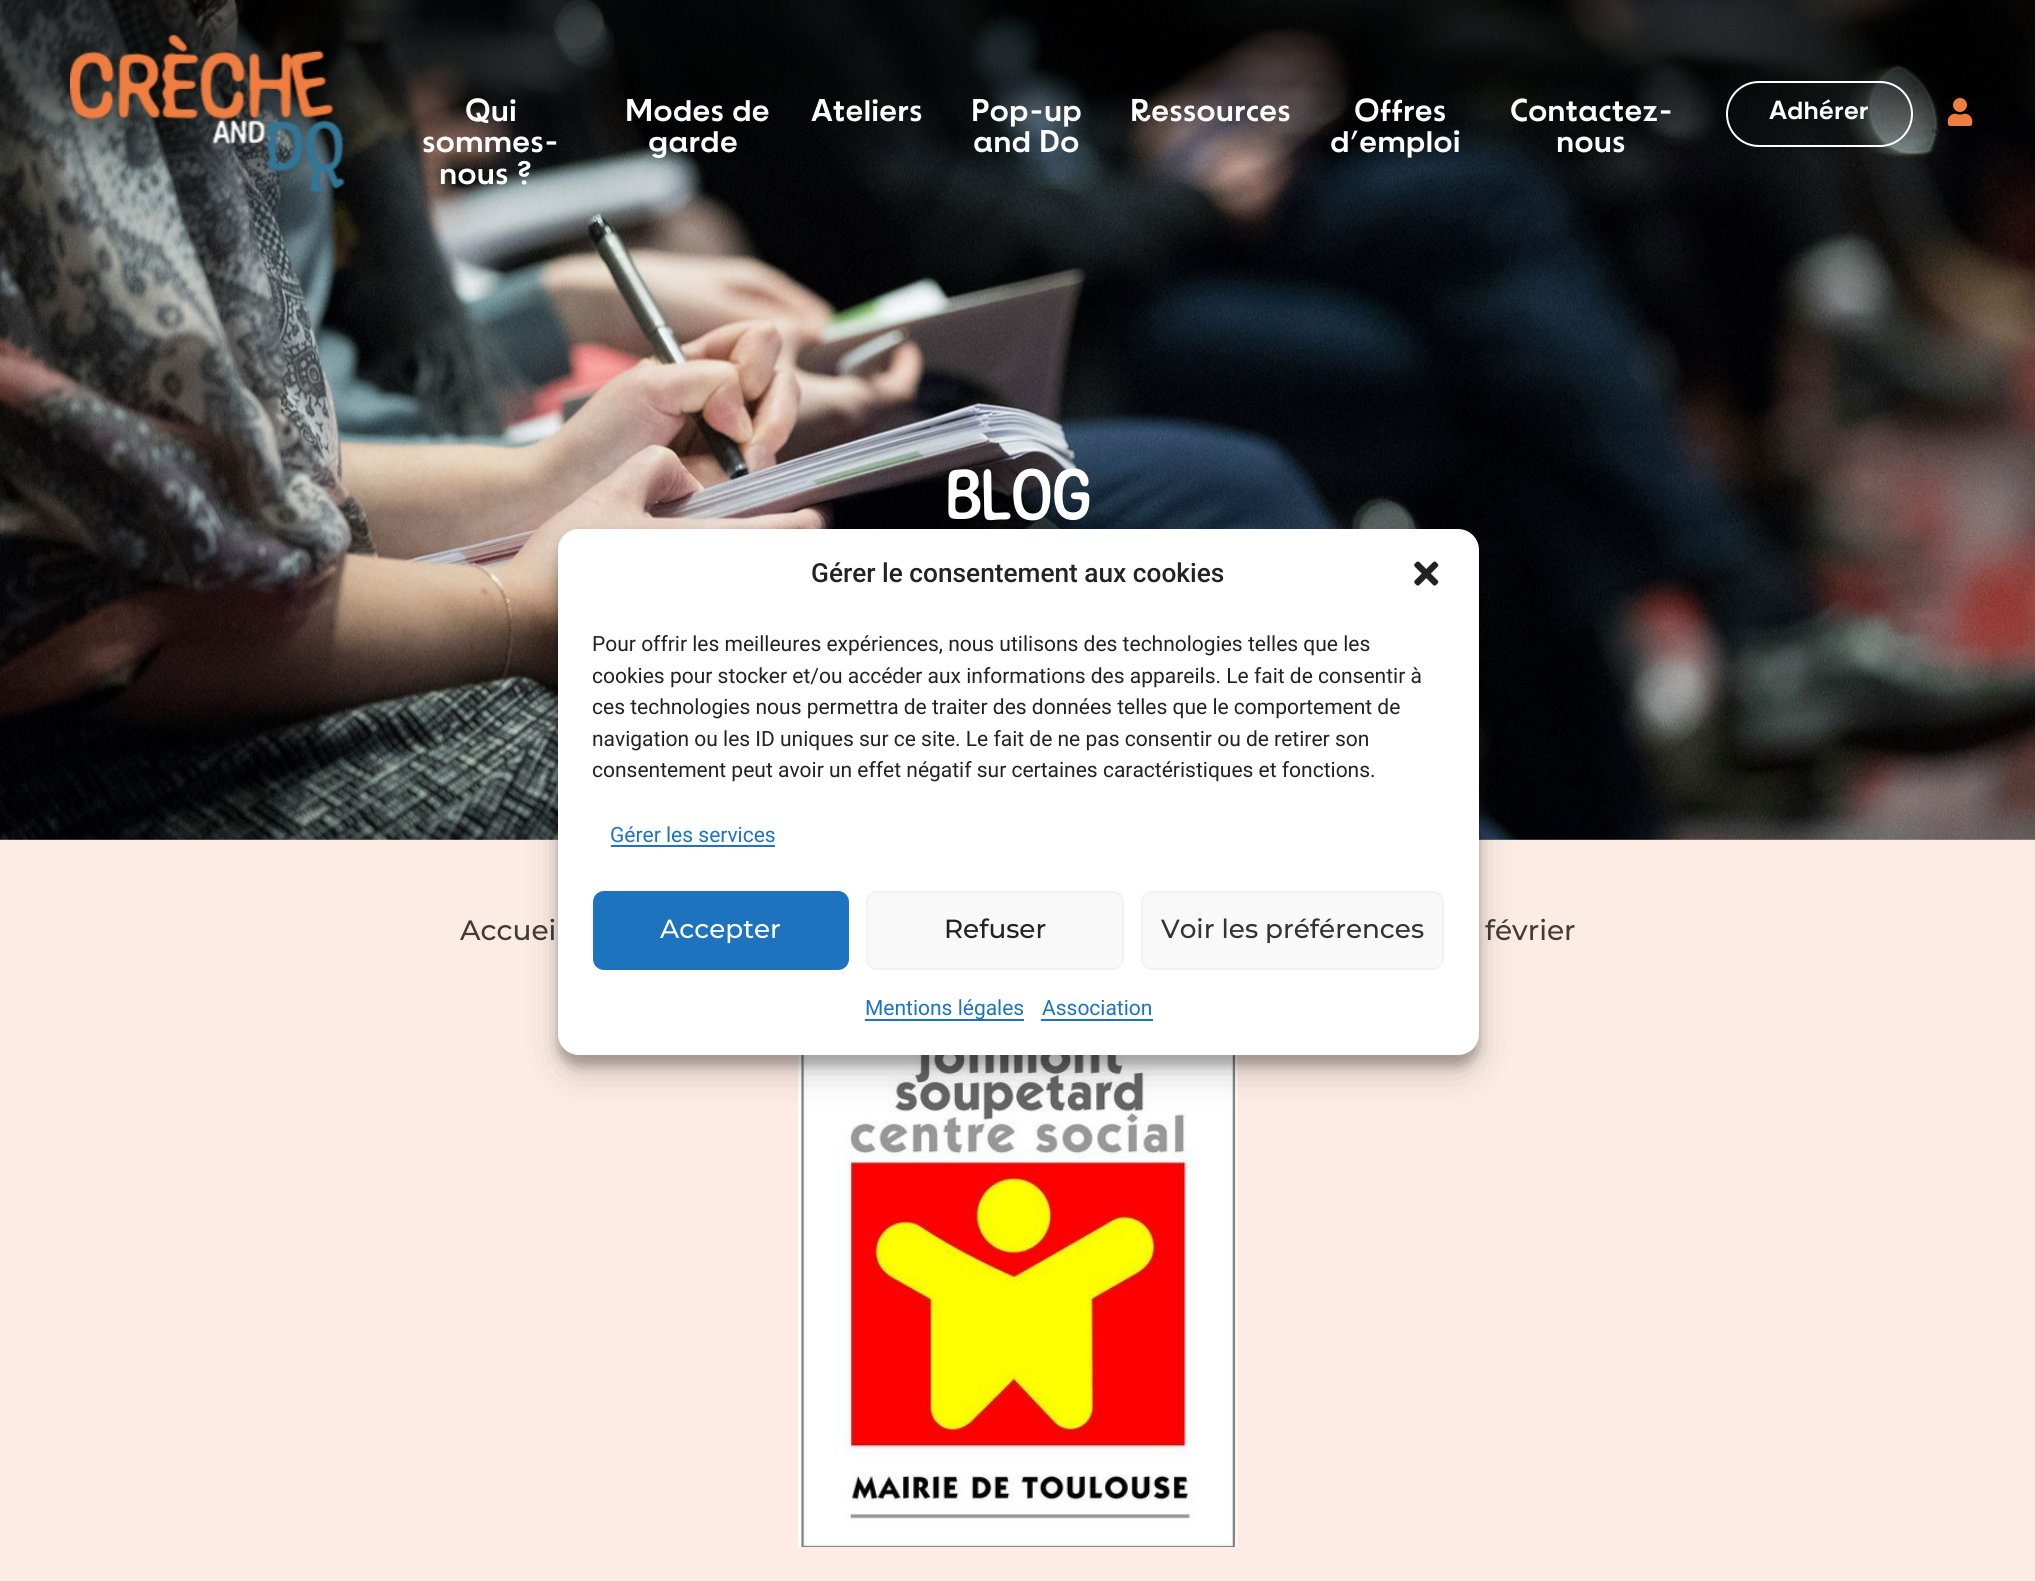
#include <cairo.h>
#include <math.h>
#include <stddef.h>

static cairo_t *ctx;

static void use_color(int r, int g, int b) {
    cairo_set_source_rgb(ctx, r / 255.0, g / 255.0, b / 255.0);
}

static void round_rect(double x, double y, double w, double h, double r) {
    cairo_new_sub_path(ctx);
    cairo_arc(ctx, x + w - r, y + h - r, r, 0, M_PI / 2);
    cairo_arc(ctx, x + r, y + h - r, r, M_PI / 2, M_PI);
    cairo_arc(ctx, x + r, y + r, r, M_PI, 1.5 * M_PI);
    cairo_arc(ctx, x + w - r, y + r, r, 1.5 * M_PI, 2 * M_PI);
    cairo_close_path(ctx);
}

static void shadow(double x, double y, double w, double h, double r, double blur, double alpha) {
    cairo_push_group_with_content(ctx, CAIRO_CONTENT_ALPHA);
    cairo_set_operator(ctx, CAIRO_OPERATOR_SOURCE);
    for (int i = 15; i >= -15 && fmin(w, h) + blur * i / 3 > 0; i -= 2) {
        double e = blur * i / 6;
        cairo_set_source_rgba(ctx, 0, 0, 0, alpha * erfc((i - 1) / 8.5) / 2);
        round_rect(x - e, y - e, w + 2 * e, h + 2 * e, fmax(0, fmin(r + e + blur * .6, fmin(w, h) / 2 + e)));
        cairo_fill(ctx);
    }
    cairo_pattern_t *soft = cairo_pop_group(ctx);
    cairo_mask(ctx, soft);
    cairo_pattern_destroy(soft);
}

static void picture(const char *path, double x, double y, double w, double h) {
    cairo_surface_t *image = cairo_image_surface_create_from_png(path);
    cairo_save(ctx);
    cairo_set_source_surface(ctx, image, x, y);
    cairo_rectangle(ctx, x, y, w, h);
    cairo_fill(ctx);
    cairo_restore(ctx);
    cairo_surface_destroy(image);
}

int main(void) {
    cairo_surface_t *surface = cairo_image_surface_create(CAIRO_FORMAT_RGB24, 2035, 1581);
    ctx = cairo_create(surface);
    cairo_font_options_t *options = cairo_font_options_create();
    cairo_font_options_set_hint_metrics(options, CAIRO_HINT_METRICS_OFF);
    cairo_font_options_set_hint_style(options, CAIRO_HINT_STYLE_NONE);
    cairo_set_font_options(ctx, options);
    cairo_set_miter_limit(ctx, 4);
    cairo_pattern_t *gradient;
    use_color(255, 255, 255);
    cairo_paint(ctx);
    picture("img3.png", 0, 0, 2035, 840);
    gradient = cairo_pattern_create_linear(1018, 0, 1018, 840);
    cairo_pattern_add_color_stop_rgba(gradient, 0.1, 0, 0, 0, 0.6);
    cairo_pattern_add_color_stop_rgba(gradient, 0.2, 0, 0, 0, 0);
    cairo_set_source(ctx, gradient);
    cairo_pattern_destroy(gradient);
    cairo_rectangle(ctx, 0, 0, 2035, 165);
    cairo_fill(ctx);
    picture("img1.png", 70, 34, 275, 159);
    cairo_select_font_face(ctx, "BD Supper", CAIRO_FONT_SLANT_NORMAL, CAIRO_FONT_WEIGHT_NORMAL);
    cairo_set_font_size(ctx, 31.5);
    use_color(255, 255, 255);
    cairo_move_to(ctx, 465, 121);
    cairo_show_text(ctx, "Qui");
    cairo_move_to(ctx, 422, 152);
    cairo_show_text(ctx, "sommes-");
    cairo_move_to(ctx, 439, 184);
    cairo_show_text(ctx, "nous ?");
    cairo_move_to(ctx, 625, 121);
    cairo_show_text(ctx, "Modes de");
    cairo_move_to(ctx, 648, 152);
    cairo_show_text(ctx, "garde");
    cairo_move_to(ctx, 811, 121);
    cairo_show_text(ctx, "Ateliers");
    cairo_move_to(ctx, 971, 121);
    cairo_show_text(ctx, "Pop-up");
    cairo_move_to(ctx, 973, 152);
    cairo_show_text(ctx, "and Do");
    cairo_move_to(ctx, 1130, 121);
    cairo_show_text(ctx, "Ressources");
    cairo_move_to(ctx, 1354, 121);
    cairo_show_text(ctx, "Offres");
    cairo_move_to(ctx, 1330, 152);
    cairo_show_text(ctx, "d’emploi");
    cairo_move_to(ctx, 1510, 121);
    cairo_show_text(ctx, "Contactez-");
    cairo_move_to(ctx, 1556, 152);
    cairo_show_text(ctx, "nous");
    round_rect(1727, 82, 185, 64, 32);
    cairo_stroke(ctx);
    cairo_set_font_size(ctx, 26.25);
    cairo_move_to(ctx, 1769, 119);
    cairo_show_text(ctx, "Adhérer");
    picture("img2.png", 1947, 98, 26, 28);
    cairo_select_font_face(ctx, "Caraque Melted", CAIRO_FONT_SLANT_NORMAL, CAIRO_FONT_WEIGHT_NORMAL);
    cairo_set_font_size(ctx, 70);
    cairo_move_to(ctx, 945, 519);
    cairo_show_text(ctx, "BLOG");
    use_color(253, 236, 227);
    cairo_rectangle(ctx, 0, 840, 2035, 741);
    cairo_fill(ctx);
    cairo_select_font_face(ctx, "Montserrat Medium", CAIRO_FONT_SLANT_NORMAL, CAIRO_FONT_WEIGHT_NORMAL);
    cairo_set_font_size(ctx, 28);
    use_color(64, 60, 58);
    cairo_move_to(ctx, 460, 940);
    cairo_show_text(ctx, "Accuei");
    cairo_move_to(ctx, 1485, 940);
    cairo_show_text(ctx, "février");
    picture("img4.png", 798, 1055, 440, 492);
    use_color(0, 0, 0);
    shadow(558, 539, 921, 527, 21, 5, 0.23);
    shadow(558, 546, 921, 527, 21, 17.5, 0.19);
    use_color(255, 255, 255);
    round_rect(558, 529, 921, 526, 21);
    cairo_fill(ctx);
    cairo_select_font_face(ctx, "Roboto Medium", CAIRO_FONT_SLANT_NORMAL, CAIRO_FONT_WEIGHT_NORMAL);
    cairo_set_font_size(ctx, 26.25);
    use_color(34, 34, 34);
    cairo_move_to(ctx, 811, 582);
    cairo_show_text(ctx, "Gérer le consentement aux cookies");
    picture("img5.png", 1414, 561, 25, 25);
    cairo_select_font_face(ctx, "Roboto", CAIRO_FONT_SLANT_NORMAL, CAIRO_FONT_WEIGHT_NORMAL);
    cairo_set_font_size(ctx, 21);
    cairo_move_to(ctx, 592, 651);
    cairo_show_text(ctx, "Pour offrir les meilleures expériences, nous utilisons des technologies telles que les");
    cairo_move_to(ctx, 592, 683);
    cairo_show_text(ctx, "cookies pour stocker et/ou accéder aux informations des appareils. Le fait de consentir à");
    cairo_move_to(ctx, 592, 714);
    cairo_show_text(ctx, "ces technologies nous permettra de traiter des données telles que le comportement de");
    cairo_move_to(ctx, 592, 746);
    cairo_show_text(ctx, "navigation ou les ID uniques sur ce site. Le fait de ne pas consentir ou de retirer son");
    cairo_move_to(ctx, 592, 777);
    cairo_show_text(ctx, "consentement peut avoir un effet négatif sur certaines caractéristiques et fonctions.");
    use_color(30, 115, 190);
    cairo_move_to(ctx, 610, 842);
    cairo_show_text(ctx, "Gérer les services");
    cairo_rectangle(ctx, 611, 845, 164, 2);
    cairo_fill(ctx);
    round_rect(594, 892, 254, 77, 10);
    cairo_fill_preserve(ctx);
    cairo_stroke(ctx);
    cairo_select_font_face(ctx, "Montserrat Medium", CAIRO_FONT_SLANT_NORMAL, CAIRO_FONT_WEIGHT_NORMAL);
    cairo_set_font_size(ctx, 26.25);
    use_color(255, 255, 255);
    cairo_move_to(ctx, 660, 938);
    cairo_show_text(ctx, "Accepter");
    use_color(249, 249, 249);
    round_rect(867, 892, 256, 77, 10);
    cairo_fill_preserve(ctx);
    use_color(242, 242, 242);
    cairo_stroke(ctx);
    use_color(34, 34, 34);
    cairo_move_to(ctx, 944, 938);
    cairo_show_text(ctx, "Refuser");
    use_color(249, 249, 249);
    round_rect(1142, 892, 301, 77, 10);
    cairo_fill_preserve(ctx);
    use_color(242, 242, 242);
    cairo_stroke(ctx);
    use_color(51, 51, 51);
    cairo_move_to(ctx, 1161, 938);
    cairo_show_text(ctx, "Voir les préférences");
    use_color(30, 115, 190);
    cairo_rectangle(ctx, 865, 1019, 159, 2);
    cairo_fill(ctx);
    cairo_select_font_face(ctx, "Roboto", CAIRO_FONT_SLANT_NORMAL, CAIRO_FONT_WEIGHT_NORMAL);
    cairo_set_font_size(ctx, 21);
    cairo_move_to(ctx, 865, 1015);
    cairo_show_text(ctx, "Mentions légales");
    cairo_move_to(ctx, 1042, 1015);
    cairo_show_text(ctx, "Association");
    cairo_rectangle(ctx, 1041, 1019, 112, 2);
    cairo_fill(ctx);
    cairo_surface_write_to_png(surface, "result.png");
    cairo_font_options_destroy(options);
    cairo_destroy(ctx);
    cairo_surface_destroy(surface);
    return 0;
}
